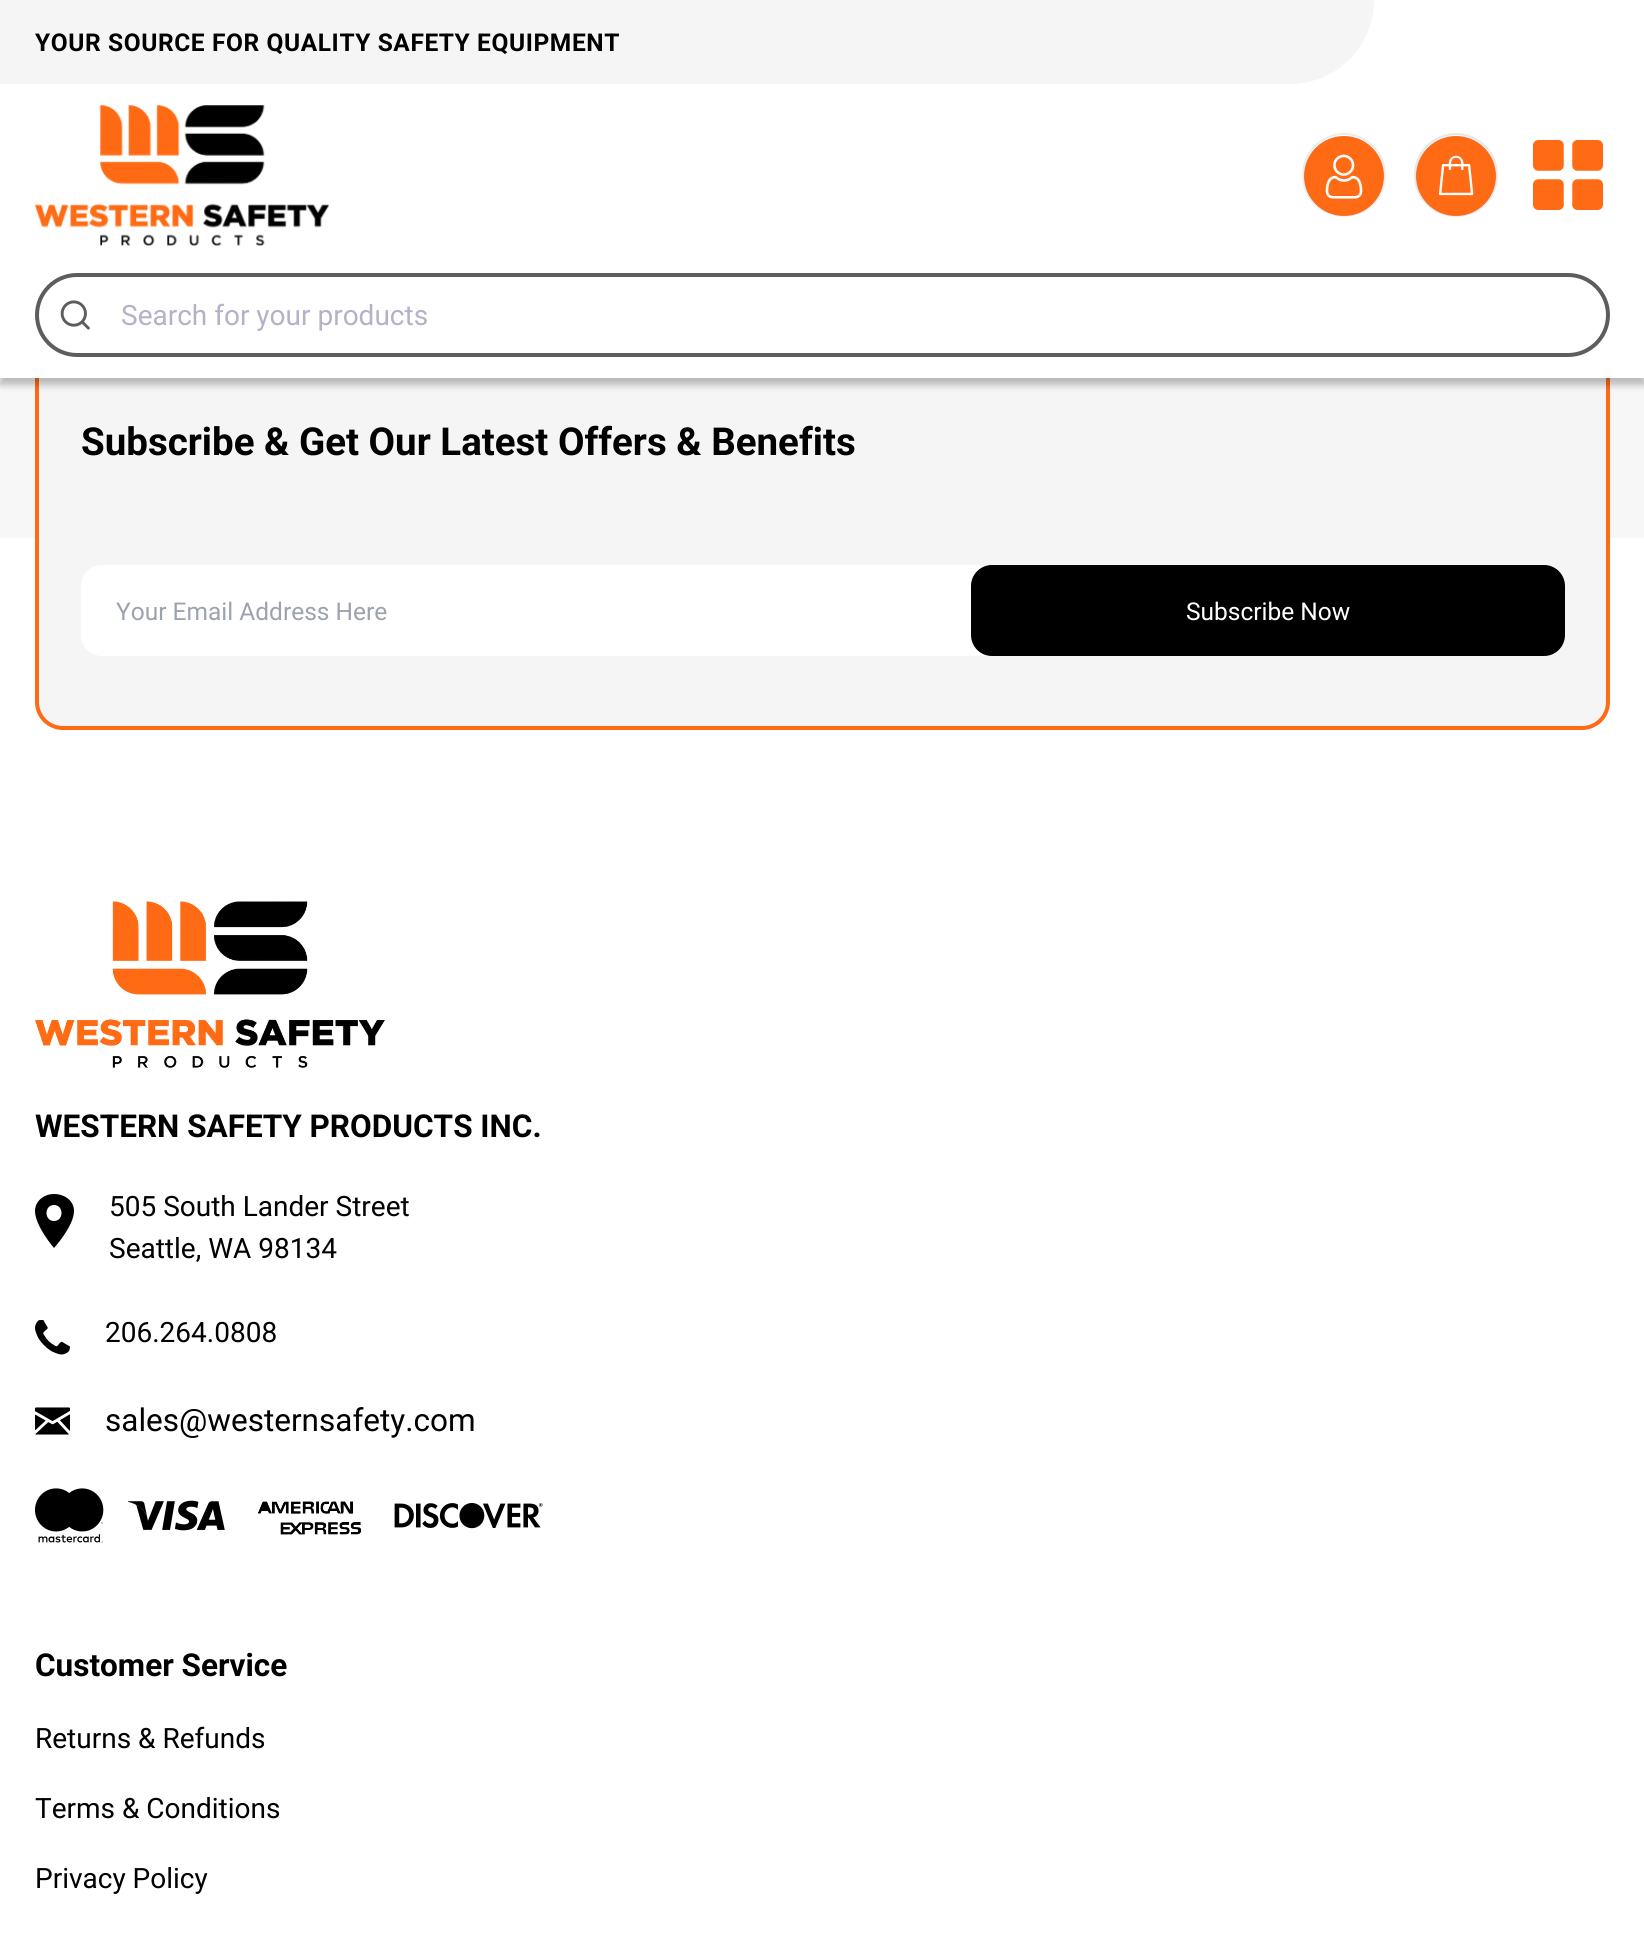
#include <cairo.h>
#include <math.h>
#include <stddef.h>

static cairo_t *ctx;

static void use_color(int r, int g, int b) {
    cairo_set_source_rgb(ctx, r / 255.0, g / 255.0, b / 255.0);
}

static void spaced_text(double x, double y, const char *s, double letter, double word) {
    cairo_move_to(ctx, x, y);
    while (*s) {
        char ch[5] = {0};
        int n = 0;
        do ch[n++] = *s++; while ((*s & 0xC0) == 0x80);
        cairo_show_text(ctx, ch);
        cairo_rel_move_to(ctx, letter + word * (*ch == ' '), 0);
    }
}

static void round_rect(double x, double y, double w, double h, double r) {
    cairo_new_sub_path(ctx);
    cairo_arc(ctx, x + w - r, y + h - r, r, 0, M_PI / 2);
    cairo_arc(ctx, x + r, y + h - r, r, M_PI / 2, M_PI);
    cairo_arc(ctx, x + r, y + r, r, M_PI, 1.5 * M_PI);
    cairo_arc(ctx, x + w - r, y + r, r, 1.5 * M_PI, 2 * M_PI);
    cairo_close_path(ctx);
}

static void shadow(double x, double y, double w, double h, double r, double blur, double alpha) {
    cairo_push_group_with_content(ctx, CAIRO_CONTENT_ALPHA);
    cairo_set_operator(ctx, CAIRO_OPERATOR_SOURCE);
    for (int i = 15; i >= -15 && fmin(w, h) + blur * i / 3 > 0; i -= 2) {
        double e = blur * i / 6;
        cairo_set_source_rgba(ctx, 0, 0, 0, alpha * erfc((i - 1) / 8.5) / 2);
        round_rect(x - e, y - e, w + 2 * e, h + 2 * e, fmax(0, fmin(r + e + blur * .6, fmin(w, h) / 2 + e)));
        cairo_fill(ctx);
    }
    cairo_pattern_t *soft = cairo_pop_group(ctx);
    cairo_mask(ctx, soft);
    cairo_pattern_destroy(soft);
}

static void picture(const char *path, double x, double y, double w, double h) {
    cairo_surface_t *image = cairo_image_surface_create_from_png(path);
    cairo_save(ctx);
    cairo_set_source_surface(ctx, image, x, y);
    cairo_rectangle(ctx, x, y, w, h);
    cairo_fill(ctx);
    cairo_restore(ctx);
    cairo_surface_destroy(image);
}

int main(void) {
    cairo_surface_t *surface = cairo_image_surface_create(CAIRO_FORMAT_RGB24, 1644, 1937);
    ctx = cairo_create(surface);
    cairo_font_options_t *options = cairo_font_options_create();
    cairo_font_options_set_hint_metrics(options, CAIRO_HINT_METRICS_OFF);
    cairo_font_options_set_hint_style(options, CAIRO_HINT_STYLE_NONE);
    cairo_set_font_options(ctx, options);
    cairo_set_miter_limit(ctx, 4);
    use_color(247, 247, 247);
    cairo_paint(ctx);
    use_color(255, 255, 255);
    cairo_rectangle(ctx, 0, 538, 1644, 1399);
    cairo_fill(ctx);
    use_color(245, 245, 245);
    round_rect(37, 345, 1571, 383, 26);
    cairo_fill_preserve(ctx);
    use_color(255, 106, 21);
    cairo_set_line_width(ctx, 4);
    cairo_stroke(ctx);
    use_color(0, 0, 0);
    shadow(0, 7, 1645, 378, 0, 3.5, 0.25);
    use_color(255, 255, 255);
    cairo_rectangle(ctx, 0, 0, 1644, 378);
    cairo_fill(ctx);
    use_color(245, 245, 245);
    cairo_rectangle(ctx, 0, 0, 35, 84);
    cairo_fill(ctx);
    cairo_new_path(ctx);
    cairo_move_to(ctx, 35, 0);
    cairo_line_to(ctx, 1374, 0);
    cairo_curve_to(ctx, 1374, 46.5, 1336.5, 84, 1290, 84);
    cairo_line_to(ctx, 35, 84);
    cairo_close_path(ctx);
    cairo_fill(ctx);
    cairo_select_font_face(ctx, "Roboto", CAIRO_FONT_SLANT_NORMAL, CAIRO_FONT_WEIGHT_BOLD);
    cairo_set_font_size(ctx, 24.5);
    use_color(0, 0, 0);
    spaced_text(35, 51, "YOUR SOURCE FOR QUALITY SAFETY EQUIPMENT", 0.6, 0);
    picture("img1.png", 35, 105, 294, 141);
    cairo_arc(ctx, 1344, 175, 41, 0, 2 * M_PI);
    use_color(236, 236, 236);
    cairo_set_line_width(ctx, 2);
    cairo_stroke(ctx);
    picture("img2.png", 1304, 136, 80, 80);
    use_color(247, 247, 247);
    cairo_arc(ctx, 1456, 175, 41, 0, 2 * M_PI);
    cairo_fill_preserve(ctx);
    use_color(229, 231, 235);
    cairo_stroke(ctx);
    picture("img3.png", 1416, 136, 80, 80);
    picture("img4.png", 1533, 140, 70, 70);
    round_rect(37, 275, 1571, 80, 40);
    use_color(93, 93, 93);
    cairo_set_line_width(ctx, 4);
    cairo_stroke(ctx);
    picture("img5.png", 60, 300, 30, 30);
    cairo_select_font_face(ctx, "Roboto", CAIRO_FONT_SLANT_NORMAL, CAIRO_FONT_WEIGHT_NORMAL);
    cairo_set_font_size(ctx, 28);
    use_color(179, 178, 200);
    cairo_move_to(ctx, 121, 325);
    cairo_show_text(ctx, "Search for your products");
    cairo_select_font_face(ctx, "Roboto", CAIRO_FONT_SLANT_NORMAL, CAIRO_FONT_WEIGHT_BOLD);
    cairo_set_font_size(ctx, 38.5);
    use_color(0, 0, 0);
    cairo_move_to(ctx, 81, 455);
    cairo_show_text(ctx, "Subscribe & Get Our Latest Offers & Benefits");
    use_color(255, 255, 255);
    round_rect(81, 565, 946, 91, 21);
    cairo_fill(ctx);
    cairo_select_font_face(ctx, "Roboto", CAIRO_FONT_SLANT_NORMAL, CAIRO_FONT_WEIGHT_NORMAL);
    cairo_set_font_size(ctx, 24.5);
    use_color(156, 163, 175);
    cairo_move_to(ctx, 116, 620);
    cairo_show_text(ctx, "Your Email Address Here");
    use_color(0, 0, 0);
    round_rect(971, 565, 594, 91, 21);
    cairo_fill(ctx);
    use_color(255, 255, 255);
    cairo_move_to(ctx, 1186, 620);
    cairo_show_text(ctx, "Subscribe Now");
    picture("img6.png", 35, 901, 350, 167);
    cairo_select_font_face(ctx, "Roboto", CAIRO_FONT_SLANT_NORMAL, CAIRO_FONT_WEIGHT_BOLD);
    cairo_set_font_size(ctx, 31.5);
    use_color(0, 0, 0);
    cairo_move_to(ctx, 35, 1137);
    cairo_show_text(ctx, "WESTERN SAFETY PRODUCTS INC.");
    cairo_new_path(ctx);
    cairo_move_to(ctx, 54, 1194);
    cairo_curve_to(ctx, 44, 1194, 35, 1201, 35, 1211);
    cairo_curve_to(ctx, 35, 1226, 54, 1248, 54, 1248);
    cairo_curve_to(ctx, 54, 1248, 74, 1226, 74, 1211);
    cairo_curve_to(ctx, 74, 1201, 65, 1194, 54, 1194);
    cairo_close_path(ctx);
    cairo_move_to(ctx, 54, 1221);
    cairo_curve_to(ctx, 44, 1221, 44, 1205, 54, 1205);
    cairo_curve_to(ctx, 64, 1205, 64, 1221, 54, 1221);
    cairo_close_path(ctx);
    cairo_fill(ctx);
    cairo_select_font_face(ctx, "Roboto", CAIRO_FONT_SLANT_NORMAL, CAIRO_FONT_WEIGHT_NORMAL);
    cairo_set_font_size(ctx, 28);
    cairo_move_to(ctx, 109, 1216);
    cairo_show_text(ctx, "505 South Lander Street");
    cairo_move_to(ctx, 109, 1258);
    cairo_show_text(ctx, "Seattle, WA 98134");
    picture("img7.png", 35, 1320, 35, 35);
    cairo_move_to(ctx, 105, 1342);
    cairo_show_text(ctx, "206.264.0808");
    picture("img8.png", 35, 1407, 35, 28);
    cairo_set_font_size(ctx, 31.5);
    cairo_move_to(ctx, 105, 1431);
    cairo_show_text(ctx, "sales@westernsafety.com");
    picture("img9.png", 35, 1488, 508, 55);
    cairo_select_font_face(ctx, "Roboto", CAIRO_FONT_SLANT_NORMAL, CAIRO_FONT_WEIGHT_BOLD);
    cairo_move_to(ctx, 35, 1676);
    cairo_show_text(ctx, "Customer Service");
    cairo_select_font_face(ctx, "Roboto", CAIRO_FONT_SLANT_NORMAL, CAIRO_FONT_WEIGHT_NORMAL);
    cairo_set_font_size(ctx, 28);
    cairo_move_to(ctx, 35, 1748);
    cairo_show_text(ctx, "Returns & Refunds");
    cairo_move_to(ctx, 35, 1818);
    cairo_show_text(ctx, "Terms & Conditions");
    cairo_move_to(ctx, 35, 1888);
    cairo_show_text(ctx, "Privacy Policy");
    cairo_surface_write_to_png(surface, "result.png");
    cairo_font_options_destroy(options);
    cairo_destroy(ctx);
    cairo_surface_destroy(surface);
    return 0;
}
